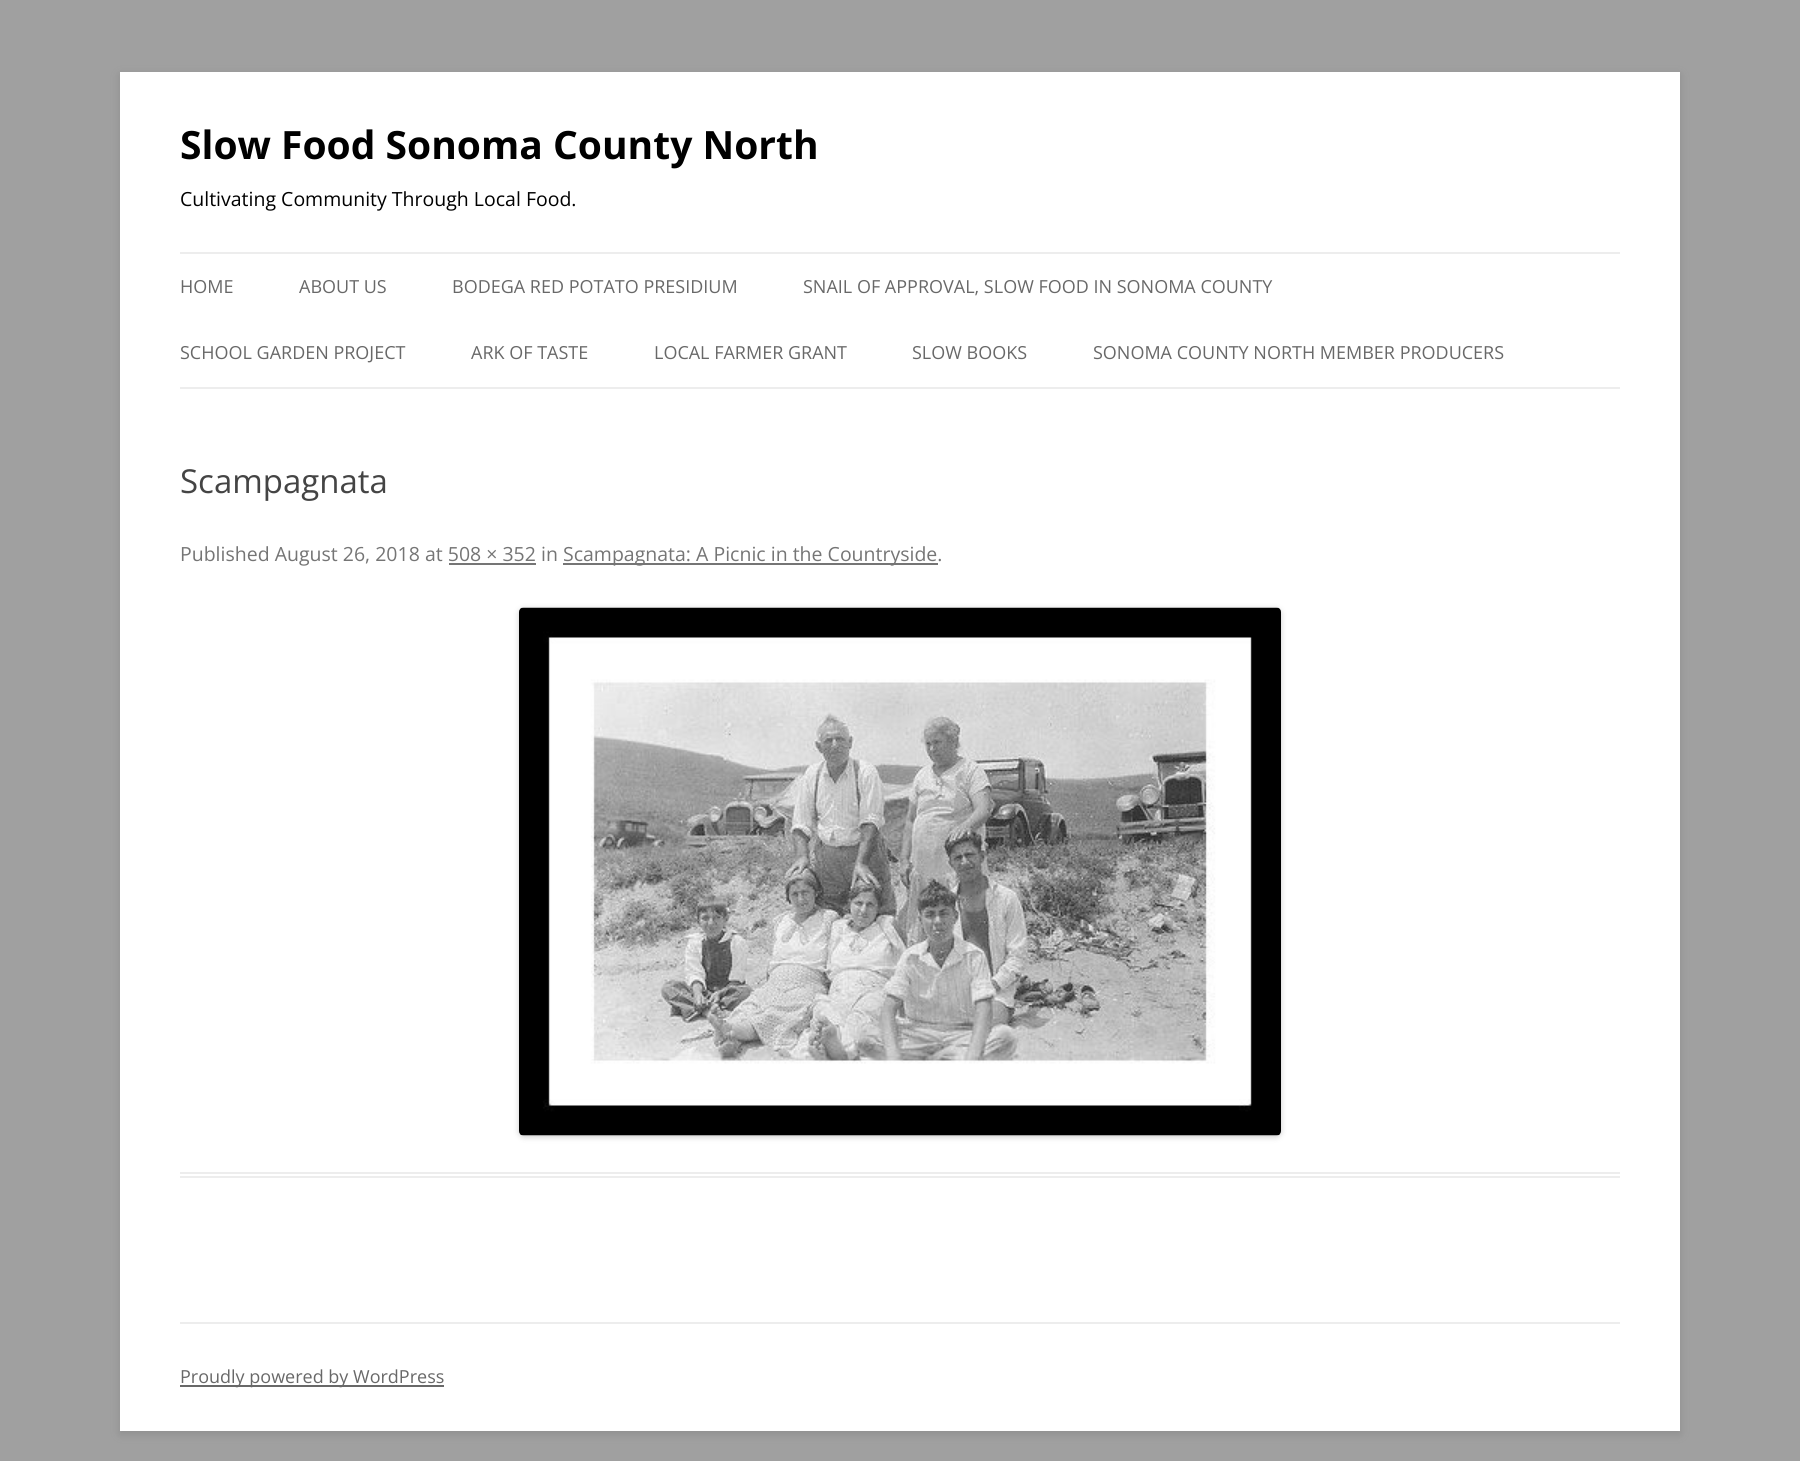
#include <cairo.h>
#include <math.h>
#include <stddef.h>

static cairo_t *ctx;

static void use_color(int r, int g, int b) {
    cairo_set_source_rgb(ctx, r / 255.0, g / 255.0, b / 255.0);
}

static void round_rect(double x, double y, double w, double h, double r) {
    cairo_new_sub_path(ctx);
    cairo_arc(ctx, x + w - r, y + h - r, r, 0, M_PI / 2);
    cairo_arc(ctx, x + r, y + h - r, r, M_PI / 2, M_PI);
    cairo_arc(ctx, x + r, y + r, r, M_PI, 1.5 * M_PI);
    cairo_arc(ctx, x + w - r, y + r, r, 1.5 * M_PI, 2 * M_PI);
    cairo_close_path(ctx);
}

static void shadow(double x, double y, double w, double h, double r, double blur, double alpha) {
    cairo_push_group_with_content(ctx, CAIRO_CONTENT_ALPHA);
    cairo_set_operator(ctx, CAIRO_OPERATOR_SOURCE);
    for (int i = 15; i >= -15 && fmin(w, h) + blur * i / 3 > 0; i -= 2) {
        double e = blur * i / 6;
        cairo_set_source_rgba(ctx, 0, 0, 0, alpha * erfc((i - 1) / 8.5) / 2);
        round_rect(x - e, y - e, w + 2 * e, h + 2 * e, fmax(0, fmin(r + e + blur * .6, fmin(w, h) / 2 + e)));
        cairo_fill(ctx);
    }
    cairo_pattern_t *soft = cairo_pop_group(ctx);
    cairo_mask(ctx, soft);
    cairo_pattern_destroy(soft);
}

static void picture(const char *path, double x, double y, double w, double h) {
    cairo_surface_t *image = cairo_image_surface_create_from_png(path);
    cairo_save(ctx);
    cairo_set_source_surface(ctx, image, x, y);
    cairo_rectangle(ctx, x, y, w, h);
    cairo_fill(ctx);
    cairo_restore(ctx);
    cairo_surface_destroy(image);
}

int main(void) {
    cairo_surface_t *surface = cairo_image_surface_create(CAIRO_FORMAT_RGB24, 1800, 1461);
    ctx = cairo_create(surface);
    cairo_font_options_t *options = cairo_font_options_create();
    cairo_font_options_set_hint_metrics(options, CAIRO_HINT_METRICS_OFF);
    cairo_font_options_set_hint_style(options, CAIRO_HINT_STYLE_NONE);
    cairo_set_font_options(ctx, options);
    cairo_set_miter_limit(ctx, 4);
    use_color(160, 160, 160);
    cairo_paint(ctx);
    use_color(100, 100, 100);
    shadow(120, 75, 1560, 1359, 0, 4.5, 0.3);
    use_color(255, 255, 255);
    cairo_rectangle(ctx, 120, 72, 1560, 1359);
    cairo_fill(ctx);
    cairo_select_font_face(ctx, "Open Sans", CAIRO_FONT_SLANT_NORMAL, CAIRO_FONT_WEIGHT_BOLD);
    cairo_set_font_size(ctx, 39);
    use_color(0, 0, 0);
    cairo_move_to(ctx, 180, 159);
    cairo_show_text(ctx, "Slow Food Sonoma County North");
    cairo_select_font_face(ctx, "Open Sans", CAIRO_FONT_SLANT_NORMAL, CAIRO_FONT_WEIGHT_NORMAL);
    cairo_set_font_size(ctx, 19.5);
    cairo_move_to(ctx, 180, 206);
    cairo_show_text(ctx, "Cultivating Community Through Local Food.");
    use_color(237, 237, 237);
    cairo_rectangle(ctx, 180, 252, 1440, 2);
    cairo_fill(ctx);
    cairo_rectangle(ctx, 180, 387, 1440, 2);
    cairo_fill(ctx);
    cairo_set_font_size(ctx, 18);
    use_color(104, 104, 104);
    cairo_move_to(ctx, 180, 293);
    cairo_show_text(ctx, "HOME");
    cairo_move_to(ctx, 299, 293);
    cairo_show_text(ctx, "ABOUT US");
    cairo_move_to(ctx, 452, 293);
    cairo_show_text(ctx, "BODEGA RED POTATO PRESIDIUM");
    cairo_move_to(ctx, 803, 293);
    cairo_show_text(ctx, "SNAIL OF APPROVAL, SLOW FOOD IN SONOMA COUNTY");
    cairo_move_to(ctx, 180, 359);
    cairo_show_text(ctx, "SCHOOL GARDEN PROJECT");
    cairo_move_to(ctx, 471, 359);
    cairo_show_text(ctx, "ARK OF TASTE");
    cairo_move_to(ctx, 654, 359);
    cairo_show_text(ctx, "LOCAL FARMER GRANT");
    cairo_move_to(ctx, 912, 359);
    cairo_show_text(ctx, "SLOW BOOKS");
    cairo_move_to(ctx, 1093, 359);
    cairo_show_text(ctx, "SONOMA COUNTY NORTH MEMBER PRODUCERS");
    use_color(237, 237, 237);
    cairo_rectangle(ctx, 180, 1172, 1440, 2);
    cairo_fill(ctx);
    cairo_rectangle(ctx, 180, 1176, 1440, 2);
    cairo_fill(ctx);
    cairo_set_font_size(ctx, 33);
    use_color(68, 68, 68);
    cairo_move_to(ctx, 180, 493);
    cairo_show_text(ctx, "Scampagnata");
    cairo_set_font_size(ctx, 19.5);
    use_color(117, 117, 117);
    cairo_move_to(ctx, 180, 561);
    cairo_show_text(ctx, "Published August 26, 2018 at 508 × 352 in");
    cairo_rectangle(ctx, 563, 563, 375, 2);
    cairo_fill(ctx);
    cairo_move_to(ctx, 563, 561);
    cairo_show_text(ctx, "Scampagnata: A Picnic in the Countryside.");
    cairo_rectangle(ctx, 449, 563, 87, 2);
    cairo_fill(ctx);
    use_color(0, 0, 0);
    shadow(519, 609, 762, 528, 5, 3, 0.2);
    picture("img1.png", 519, 607, 762, 529);
    use_color(237, 237, 237);
    cairo_rectangle(ctx, 180, 1322, 1440, 2);
    cairo_fill(ctx);
    use_color(104, 104, 104);
    cairo_rectangle(ctx, 180, 1385, 264, 2);
    cairo_fill(ctx);
    cairo_set_font_size(ctx, 18);
    cairo_move_to(ctx, 180, 1383);
    cairo_show_text(ctx, "Proudly powered by WordPress");
    cairo_surface_write_to_png(surface, "result.png");
    cairo_font_options_destroy(options);
    cairo_destroy(ctx);
    cairo_surface_destroy(surface);
    return 0;
}
